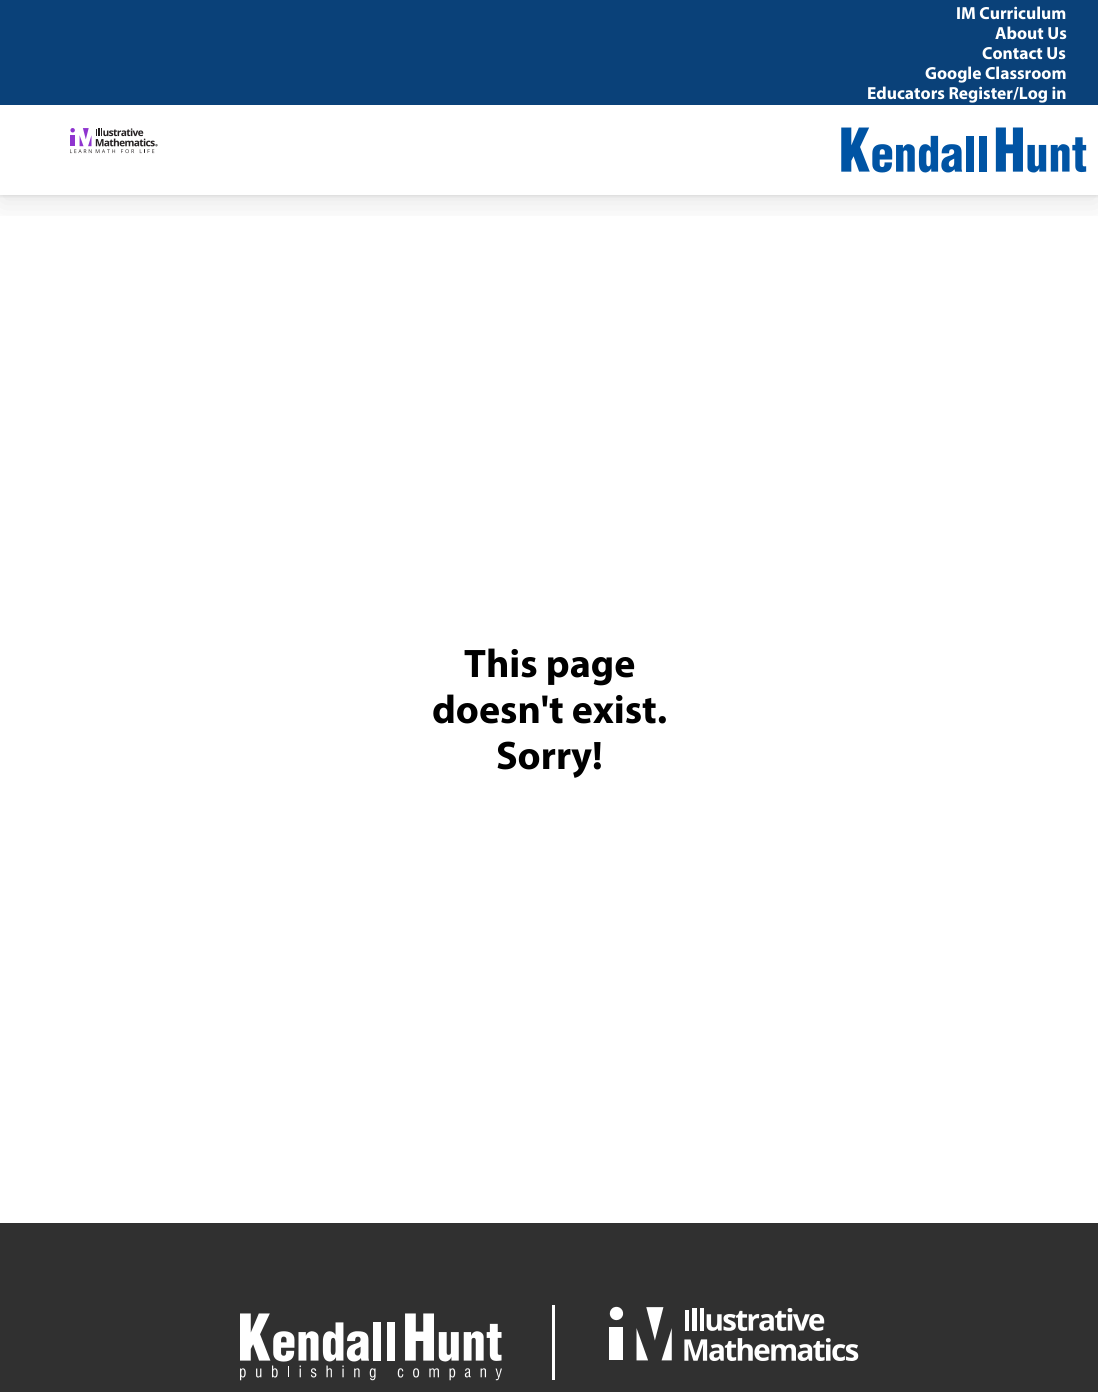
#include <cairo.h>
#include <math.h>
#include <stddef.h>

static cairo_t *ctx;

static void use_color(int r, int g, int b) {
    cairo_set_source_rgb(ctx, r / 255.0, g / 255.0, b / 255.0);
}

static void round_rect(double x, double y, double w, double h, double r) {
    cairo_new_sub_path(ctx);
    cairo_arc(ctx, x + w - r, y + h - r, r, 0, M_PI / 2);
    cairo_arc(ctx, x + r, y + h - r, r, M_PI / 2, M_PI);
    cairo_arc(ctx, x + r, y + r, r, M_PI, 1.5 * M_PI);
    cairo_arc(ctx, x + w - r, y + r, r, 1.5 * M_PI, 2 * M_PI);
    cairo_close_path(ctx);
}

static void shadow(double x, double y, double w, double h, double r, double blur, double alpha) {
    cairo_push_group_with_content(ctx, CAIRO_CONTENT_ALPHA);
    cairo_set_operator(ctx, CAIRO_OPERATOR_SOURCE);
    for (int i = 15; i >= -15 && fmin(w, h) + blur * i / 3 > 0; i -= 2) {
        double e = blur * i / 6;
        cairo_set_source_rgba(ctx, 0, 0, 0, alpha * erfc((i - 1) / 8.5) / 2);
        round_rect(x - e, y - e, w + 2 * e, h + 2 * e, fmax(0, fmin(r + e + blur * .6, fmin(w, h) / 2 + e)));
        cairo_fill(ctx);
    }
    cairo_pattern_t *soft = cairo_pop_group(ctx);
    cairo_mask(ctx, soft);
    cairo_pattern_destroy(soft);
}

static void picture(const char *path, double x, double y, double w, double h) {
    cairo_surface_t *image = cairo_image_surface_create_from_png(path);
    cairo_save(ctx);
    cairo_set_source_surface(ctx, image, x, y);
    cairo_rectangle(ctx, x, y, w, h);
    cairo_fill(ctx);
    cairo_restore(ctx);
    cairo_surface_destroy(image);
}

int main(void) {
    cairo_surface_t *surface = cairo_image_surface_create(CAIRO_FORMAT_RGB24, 1098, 1392);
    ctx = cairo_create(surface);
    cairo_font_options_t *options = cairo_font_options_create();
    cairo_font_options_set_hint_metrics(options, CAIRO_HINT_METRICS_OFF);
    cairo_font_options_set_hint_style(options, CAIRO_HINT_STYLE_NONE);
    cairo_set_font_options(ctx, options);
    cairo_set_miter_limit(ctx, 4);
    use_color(255, 255, 255);
    cairo_paint(ctx);
    cairo_save(ctx);
    cairo_rectangle(ctx, 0, 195, 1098, 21);
    cairo_clip(ctx);
    use_color(0, 0, 0);
    shadow(0, 113, 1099, 90, 0, 15, 0.1);
    cairo_restore(ctx);
    cairo_save(ctx);
    cairo_rectangle(ctx, 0, 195, 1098, 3);
    cairo_clip(ctx);
    use_color(0, 0, 0);
    shadow(0, 106, 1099, 90, 0, 2, 0.1);
    cairo_restore(ctx);
    use_color(10, 65, 121);
    cairo_rectangle(ctx, 0, 0, 1098, 105);
    cairo_fill(ctx);
    cairo_select_font_face(ctx, "Myriad", CAIRO_FONT_SLANT_NORMAL, CAIRO_FONT_WEIGHT_BOLD);
    cairo_set_font_size(ctx, 17.5);
    use_color(255, 255, 255);
    cairo_move_to(ctx, 956, 19);
    cairo_show_text(ctx, "IM Curriculum");
    cairo_move_to(ctx, 995, 39);
    cairo_show_text(ctx, "About Us");
    cairo_move_to(ctx, 982, 59);
    cairo_show_text(ctx, "Contact Us");
    cairo_move_to(ctx, 925, 79);
    cairo_show_text(ctx, "Google Classroom");
    cairo_move_to(ctx, 867, 99);
    cairo_show_text(ctx, "Educators Register/Log in");
    picture("img1.png", 70, 128, 88, 26);
    picture("img2.png", 841, 127, 246, 46);
    cairo_set_font_size(ctx, 40);
    use_color(0, 0, 0);
    cairo_move_to(ctx, 464, 677);
    cairo_show_text(ctx, "This page");
    cairo_move_to(ctx, 432, 723);
    cairo_show_text(ctx, "doesn't exist.");
    cairo_move_to(ctx, 496, 769);
    cairo_show_text(ctx, "Sorry!");
    use_color(48, 48, 48);
    cairo_rectangle(ctx, 0, 1223, 1098, 169);
    cairo_fill(ctx);
    picture("img3.png", 240, 1305, 619, 76);
    cairo_surface_write_to_png(surface, "result.png");
    cairo_font_options_destroy(options);
    cairo_destroy(ctx);
    cairo_surface_destroy(surface);
    return 0;
}
